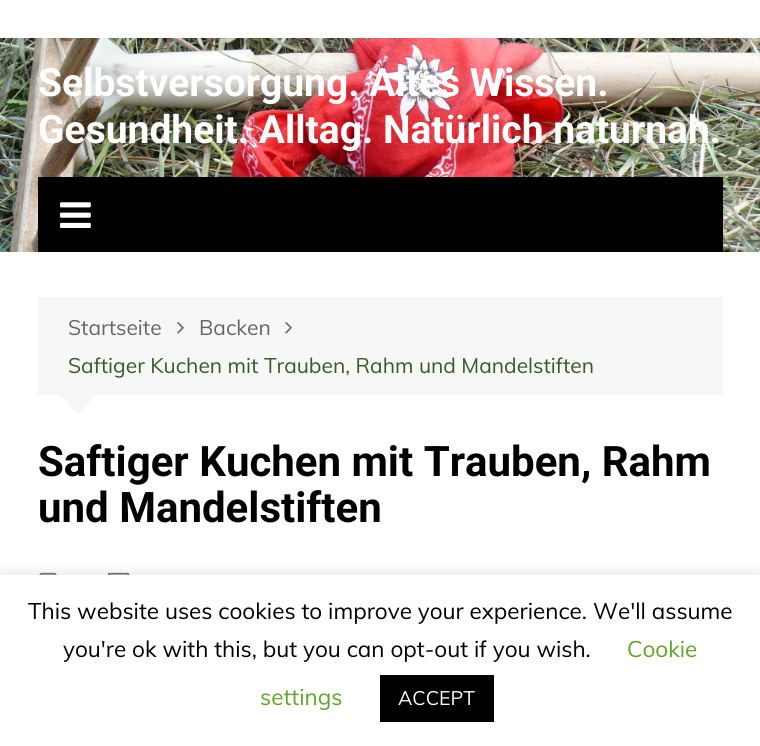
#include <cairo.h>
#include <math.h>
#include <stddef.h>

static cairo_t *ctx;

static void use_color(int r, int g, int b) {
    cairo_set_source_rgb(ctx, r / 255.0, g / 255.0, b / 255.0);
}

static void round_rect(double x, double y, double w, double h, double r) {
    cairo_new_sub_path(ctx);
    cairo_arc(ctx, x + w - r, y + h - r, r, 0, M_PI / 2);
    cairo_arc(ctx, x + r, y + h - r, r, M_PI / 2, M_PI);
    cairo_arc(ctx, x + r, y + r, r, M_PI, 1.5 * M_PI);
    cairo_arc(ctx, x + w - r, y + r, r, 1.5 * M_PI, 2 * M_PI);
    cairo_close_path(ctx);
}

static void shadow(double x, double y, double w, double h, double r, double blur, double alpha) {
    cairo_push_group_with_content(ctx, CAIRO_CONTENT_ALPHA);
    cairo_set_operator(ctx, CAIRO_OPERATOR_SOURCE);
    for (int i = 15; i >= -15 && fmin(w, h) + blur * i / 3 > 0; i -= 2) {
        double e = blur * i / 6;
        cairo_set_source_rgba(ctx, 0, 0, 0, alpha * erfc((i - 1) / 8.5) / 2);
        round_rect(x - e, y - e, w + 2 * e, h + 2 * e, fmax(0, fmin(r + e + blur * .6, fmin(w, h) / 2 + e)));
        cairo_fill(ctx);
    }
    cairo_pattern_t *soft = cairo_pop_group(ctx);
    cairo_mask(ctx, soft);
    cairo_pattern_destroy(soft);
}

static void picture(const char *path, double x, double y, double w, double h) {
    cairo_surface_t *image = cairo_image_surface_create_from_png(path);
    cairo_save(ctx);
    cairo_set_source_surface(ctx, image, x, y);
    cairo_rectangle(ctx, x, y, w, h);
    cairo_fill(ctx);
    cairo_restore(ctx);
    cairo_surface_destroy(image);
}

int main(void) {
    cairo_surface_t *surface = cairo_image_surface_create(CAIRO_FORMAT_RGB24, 760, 746);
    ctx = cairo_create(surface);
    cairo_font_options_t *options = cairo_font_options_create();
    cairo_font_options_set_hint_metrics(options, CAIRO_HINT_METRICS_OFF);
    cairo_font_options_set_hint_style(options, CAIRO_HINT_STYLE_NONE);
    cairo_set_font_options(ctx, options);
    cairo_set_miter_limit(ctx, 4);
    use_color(255, 255, 255);
    cairo_paint(ctx);
    picture("img1.png", 0, 38, 760, 214);
    cairo_select_font_face(ctx, "Roboto", CAIRO_FONT_SLANT_NORMAL, CAIRO_FONT_WEIGHT_BOLD);
    cairo_set_font_size(ctx, 39);
    use_color(255, 255, 255);
    cairo_move_to(ctx, 38, 96);
    cairo_show_text(ctx, "Selbstversorgung. Altes Wissen.");
    cairo_move_to(ctx, 38, 143);
    cairo_show_text(ctx, "Gesundheit. Alltag. Natürlich naturnah.");
    use_color(0, 0, 0);
    cairo_rectangle(ctx, 38, 177, 685, 75);
    cairo_fill(ctx);
    picture("img2.png", 60, 202, 31, 26);
    use_color(247, 247, 247);
    cairo_rectangle(ctx, 38, 297, 685, 98);
    cairo_fill(ctx);
    cairo_select_font_face(ctx, "Muli", CAIRO_FONT_SLANT_NORMAL, CAIRO_FONT_WEIGHT_NORMAL);
    cairo_set_font_size(ctx, 21);
    use_color(102, 102, 102);
    cairo_move_to(ctx, 68, 335);
    cairo_show_text(ctx, "Startseite");
    picture("img3.png", 177, 322, 7, 12);
    cairo_move_to(ctx, 199, 335);
    cairo_show_text(ctx, "Backen");
    picture("img3.png", 285, 322, 7, 12);
    use_color(54, 91, 37);
    cairo_move_to(ctx, 68, 373);
    cairo_show_text(ctx, "Saftiger Kuchen mit Trauben, Rahm und Mandelstiften");
    use_color(247, 247, 247);
    cairo_new_path(ctx);
    cairo_move_to(ctx, 60, 395);
    cairo_line_to(ctx, 96, 395);
    cairo_line_to(ctx, 78, 414.5);
    cairo_close_path(ctx);
    cairo_fill(ctx);
    cairo_select_font_face(ctx, "Roboto", CAIRO_FONT_SLANT_NORMAL, CAIRO_FONT_WEIGHT_BOLD);
    cairo_set_font_size(ctx, 42);
    use_color(1, 1, 1);
    cairo_move_to(ctx, 38, 476);
    cairo_show_text(ctx, "Saftiger Kuchen mit Trauben, Rahm");
    cairo_move_to(ctx, 38, 522);
    cairo_show_text(ctx, "und Mandelstiften");
    picture("img4.png", 39, 572, 18, 3);
    picture("img5.png", 108, 572, 21, 3);
    use_color(172, 171, 171);
    shadow(0, 573, 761, 173, 0, 7.5, 0.3);
    use_color(255, 255, 255);
    cairo_rectangle(ctx, 0, 575, 760, 171);
    cairo_fill(ctx);
    cairo_select_font_face(ctx, "Muli", CAIRO_FONT_SLANT_NORMAL, CAIRO_FONT_WEIGHT_NORMAL);
    cairo_set_font_size(ctx, 22.5);
    use_color(1, 1, 1);
    cairo_move_to(ctx, 28, 619);
    cairo_show_text(ctx, "This website uses cookies to improve your experience. We'll assume");
    cairo_move_to(ctx, 63, 657);
    cairo_show_text(ctx, "you're ok with this, but you can opt-out if you wish.");
    use_color(98, 163, 41);
    cairo_move_to(ctx, 627, 657);
    cairo_show_text(ctx, "Cookie");
    cairo_move_to(ctx, 260, 705);
    cairo_show_text(ctx, "settings");
    use_color(0, 0, 0);
    cairo_rectangle(ctx, 380, 675, 114, 47);
    cairo_fill(ctx);
    cairo_set_font_size(ctx, 19.5);
    use_color(255, 255, 255);
    cairo_move_to(ctx, 398, 705);
    cairo_show_text(ctx, "ACCEPT");
    cairo_surface_write_to_png(surface, "result.png");
    cairo_font_options_destroy(options);
    cairo_destroy(ctx);
    cairo_surface_destroy(surface);
    return 0;
}
